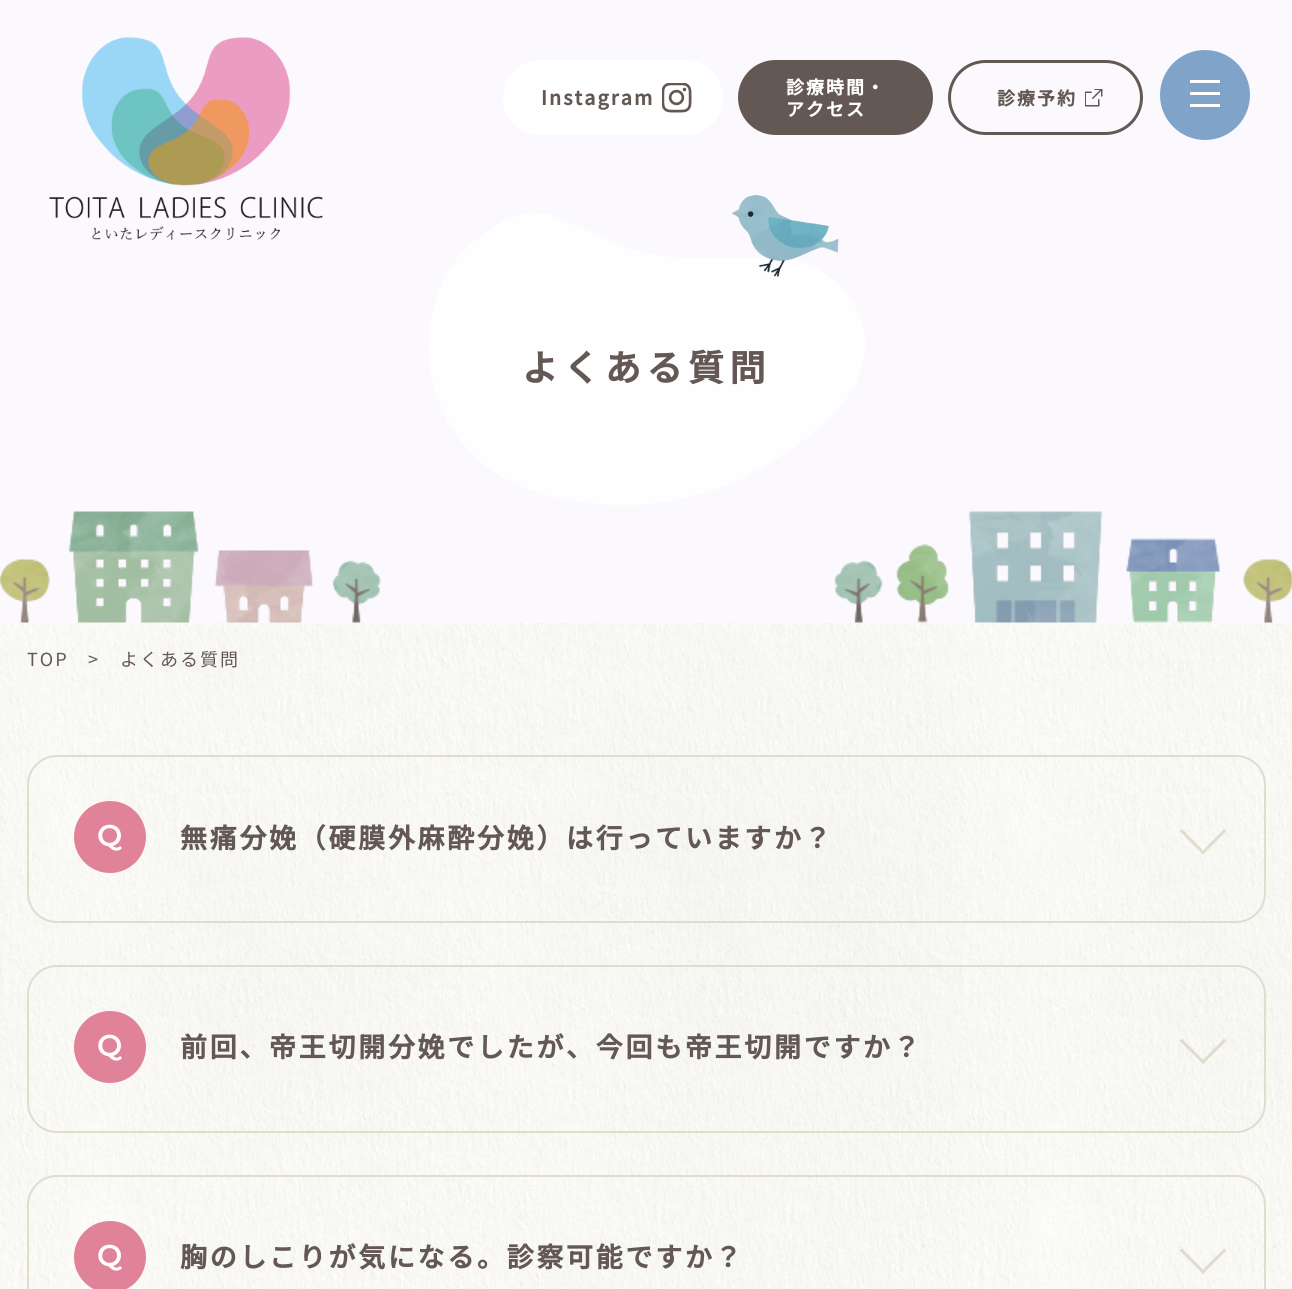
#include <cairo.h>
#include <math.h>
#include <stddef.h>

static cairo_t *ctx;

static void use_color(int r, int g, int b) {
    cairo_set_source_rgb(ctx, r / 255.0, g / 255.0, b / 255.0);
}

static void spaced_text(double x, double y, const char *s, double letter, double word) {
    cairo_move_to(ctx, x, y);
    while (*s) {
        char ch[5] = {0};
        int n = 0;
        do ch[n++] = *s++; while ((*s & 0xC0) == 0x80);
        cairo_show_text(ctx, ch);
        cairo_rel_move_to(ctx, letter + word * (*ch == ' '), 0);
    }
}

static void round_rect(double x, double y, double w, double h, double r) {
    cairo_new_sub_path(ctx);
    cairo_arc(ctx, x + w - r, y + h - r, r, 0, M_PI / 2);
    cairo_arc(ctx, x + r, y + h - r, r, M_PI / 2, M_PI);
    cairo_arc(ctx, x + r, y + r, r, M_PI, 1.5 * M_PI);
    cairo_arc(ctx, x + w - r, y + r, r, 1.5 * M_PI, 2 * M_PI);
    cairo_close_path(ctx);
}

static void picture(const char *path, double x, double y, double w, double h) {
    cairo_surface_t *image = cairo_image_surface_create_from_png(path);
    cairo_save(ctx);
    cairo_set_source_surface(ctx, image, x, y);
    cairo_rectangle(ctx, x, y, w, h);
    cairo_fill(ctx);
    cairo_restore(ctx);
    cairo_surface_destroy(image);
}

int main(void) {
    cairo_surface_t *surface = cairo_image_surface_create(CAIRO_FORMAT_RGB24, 1292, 1289);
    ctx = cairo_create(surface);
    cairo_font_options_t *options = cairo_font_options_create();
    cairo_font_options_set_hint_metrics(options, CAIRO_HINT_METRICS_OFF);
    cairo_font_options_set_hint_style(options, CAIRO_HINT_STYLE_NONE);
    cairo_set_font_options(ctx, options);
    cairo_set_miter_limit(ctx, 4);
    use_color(255, 255, 255);
    cairo_paint(ctx);
    use_color(251, 249, 254);
    cairo_rectangle(ctx, 0, 0, 1292, 622);
    cairo_fill(ctx);
    picture("img1.png", 49, 37, 274, 203);
    use_color(255, 255, 255);
    round_rect(503, 60, 220, 75, 37.5);
    cairo_fill(ctx);
    cairo_select_font_face(ctx, "Noto Sans JP", CAIRO_FONT_SLANT_NORMAL, CAIRO_FONT_WEIGHT_BOLD);
    cairo_set_font_size(ctx, 19.5);
    use_color(100, 88, 84);
    spaced_text(541, 105, "Instagram", 2, 0);
    picture("img2.png", 662, 83, 30, 30);
    round_rect(739.5, 61.5, 192, 72, 36);
    cairo_fill_preserve(ctx);
    cairo_set_line_width(ctx, 3);
    cairo_stroke(ctx);
    cairo_set_font_size(ctx, 18);
    use_color(255, 255, 255);
    spaced_text(786, 94, "診療時間・", 2, 0);
    spaced_text(786, 116, "アクセス", 2, 0);
    round_rect(949.5, 61.5, 192, 72, 36);
    use_color(100, 88, 84);
    cairo_stroke(ctx);
    spaced_text(997, 105, "診療予約", 2, 0);
    picture("img3.png", 1085, 89, 18, 18);
    use_color(128, 163, 201);
    cairo_arc(ctx, 1205, 95, 45, 0, 2 * M_PI);
    cairo_fill(ctx);
    use_color(255, 255, 255);
    cairo_rectangle(ctx, 1190, 80, 30, 3);
    cairo_fill(ctx);
    cairo_rectangle(ctx, 1190, 92, 30, 3);
    cairo_fill(ctx);
    cairo_rectangle(ctx, 1190, 104, 30, 3);
    cairo_fill(ctx);
    picture("img4.png", 429, 195, 436, 310);
    cairo_set_font_size(ctx, 36);
    use_color(100, 88, 84);
    spaced_text(522, 381, "よくある質問", 5.5, 0);
    picture("img7.png", 0, 622, 1292, 667);
    picture("img5.png", 0, 511, 381, 112);
    picture("img6.png", 834, 511, 458, 112);
    cairo_select_font_face(ctx, "Noto Sans JP", CAIRO_FONT_SLANT_NORMAL, CAIRO_FONT_WEIGHT_NORMAL);
    cairo_set_font_size(ctx, 18);
    spaced_text(27, 666, "TOP", 2, 0);
    spaced_text(88, 666, ">", 2, 0);
    spaced_text(120, 666, "よくある質問", 2, 0);
    round_rect(28, 756, 1237, 166, 29);
    use_color(224, 220, 206);
    cairo_set_line_width(ctx, 2);
    cairo_stroke(ctx);
    use_color(224, 131, 153);
    cairo_arc(ctx, 110, 837, 36, 0, 2 * M_PI);
    cairo_fill(ctx);
    cairo_select_font_face(ctx, "Montserrat SemiBold", CAIRO_FONT_SLANT_NORMAL, CAIRO_FONT_WEIGHT_NORMAL);
    cairo_set_font_size(ctx, 30);
    use_color(255, 255, 255);
    spaced_text(97, 846, "Q", 2.7, 0);
    cairo_select_font_face(ctx, "Noto Sans JP", CAIRO_FONT_SLANT_NORMAL, CAIRO_FONT_WEIGHT_BOLD);
    cairo_set_font_size(ctx, 27);
    use_color(100, 88, 84);
    spaced_text(180, 848, "無痛分娩（硬膜外麻酔分娩）は行っていますか？", 2.7, 0);
    use_color(224, 220, 206);
    cairo_new_path(ctx);
    cairo_move_to(ctx, 1224, 829);
    cairo_line_to(ctx, 1226.5, 831);
    cairo_line_to(ctx, 1203, 854.5);
    cairo_line_to(ctx, 1201, 852.5);
    cairo_close_path(ctx);
    cairo_fill(ctx);
    cairo_new_path(ctx);
    cairo_move_to(ctx, 1182, 829);
    cairo_line_to(ctx, 1205, 852.5);
    cairo_line_to(ctx, 1203, 854.5);
    cairo_line_to(ctx, 1179.5, 831);
    cairo_close_path(ctx);
    cairo_fill(ctx);
    round_rect(28, 966, 1237, 166, 29);
    cairo_stroke(ctx);
    use_color(224, 131, 153);
    cairo_arc(ctx, 110, 1047, 36, 0, 2 * M_PI);
    cairo_fill(ctx);
    cairo_select_font_face(ctx, "Montserrat SemiBold", CAIRO_FONT_SLANT_NORMAL, CAIRO_FONT_WEIGHT_NORMAL);
    cairo_set_font_size(ctx, 30);
    use_color(255, 255, 255);
    spaced_text(97, 1056, "Q", 2.7, 0);
    cairo_select_font_face(ctx, "Noto Sans JP", CAIRO_FONT_SLANT_NORMAL, CAIRO_FONT_WEIGHT_BOLD);
    cairo_set_font_size(ctx, 27);
    use_color(100, 88, 84);
    spaced_text(180, 1057, "前回、帝王切開分娩でしたが、今回も帝王切開ですか？", 2.7, 0);
    use_color(224, 220, 206);
    cairo_new_path(ctx);
    cairo_move_to(ctx, 1224, 1038.5);
    cairo_line_to(ctx, 1226.5, 1041);
    cairo_line_to(ctx, 1203, 1064);
    cairo_line_to(ctx, 1201, 1062);
    cairo_close_path(ctx);
    cairo_fill(ctx);
    cairo_new_path(ctx);
    cairo_move_to(ctx, 1182, 1038.5);
    cairo_line_to(ctx, 1205, 1062);
    cairo_line_to(ctx, 1203, 1064);
    cairo_line_to(ctx, 1179.5, 1041);
    cairo_close_path(ctx);
    cairo_fill(ctx);
    round_rect(28, 1176, 1237, 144, 29);
    cairo_stroke(ctx);
    use_color(224, 131, 153);
    cairo_arc(ctx, 110, 1257, 36, 0, 2 * M_PI);
    cairo_fill(ctx);
    cairo_select_font_face(ctx, "Montserrat SemiBold", CAIRO_FONT_SLANT_NORMAL, CAIRO_FONT_WEIGHT_NORMAL);
    cairo_set_font_size(ctx, 30);
    use_color(255, 255, 255);
    spaced_text(97, 1266, "Q", 2.7, 0);
    cairo_select_font_face(ctx, "Noto Sans JP", CAIRO_FONT_SLANT_NORMAL, CAIRO_FONT_WEIGHT_BOLD);
    cairo_set_font_size(ctx, 27);
    use_color(100, 88, 84);
    spaced_text(180, 1267, "胸のしこりが気になる。診察可能ですか？", 2.7, 0);
    use_color(224, 220, 206);
    cairo_new_path(ctx);
    cairo_move_to(ctx, 1224, 1248.5);
    cairo_line_to(ctx, 1226.5, 1250.5);
    cairo_line_to(ctx, 1203, 1274);
    cairo_line_to(ctx, 1201, 1271.5);
    cairo_close_path(ctx);
    cairo_fill(ctx);
    cairo_new_path(ctx);
    cairo_move_to(ctx, 1182, 1248.5);
    cairo_line_to(ctx, 1205, 1271.5);
    cairo_line_to(ctx, 1203, 1274);
    cairo_line_to(ctx, 1179.5, 1250.5);
    cairo_close_path(ctx);
    cairo_fill(ctx);
    cairo_surface_write_to_png(surface, "result.png");
    cairo_font_options_destroy(options);
    cairo_destroy(ctx);
    cairo_surface_destroy(surface);
    return 0;
}
